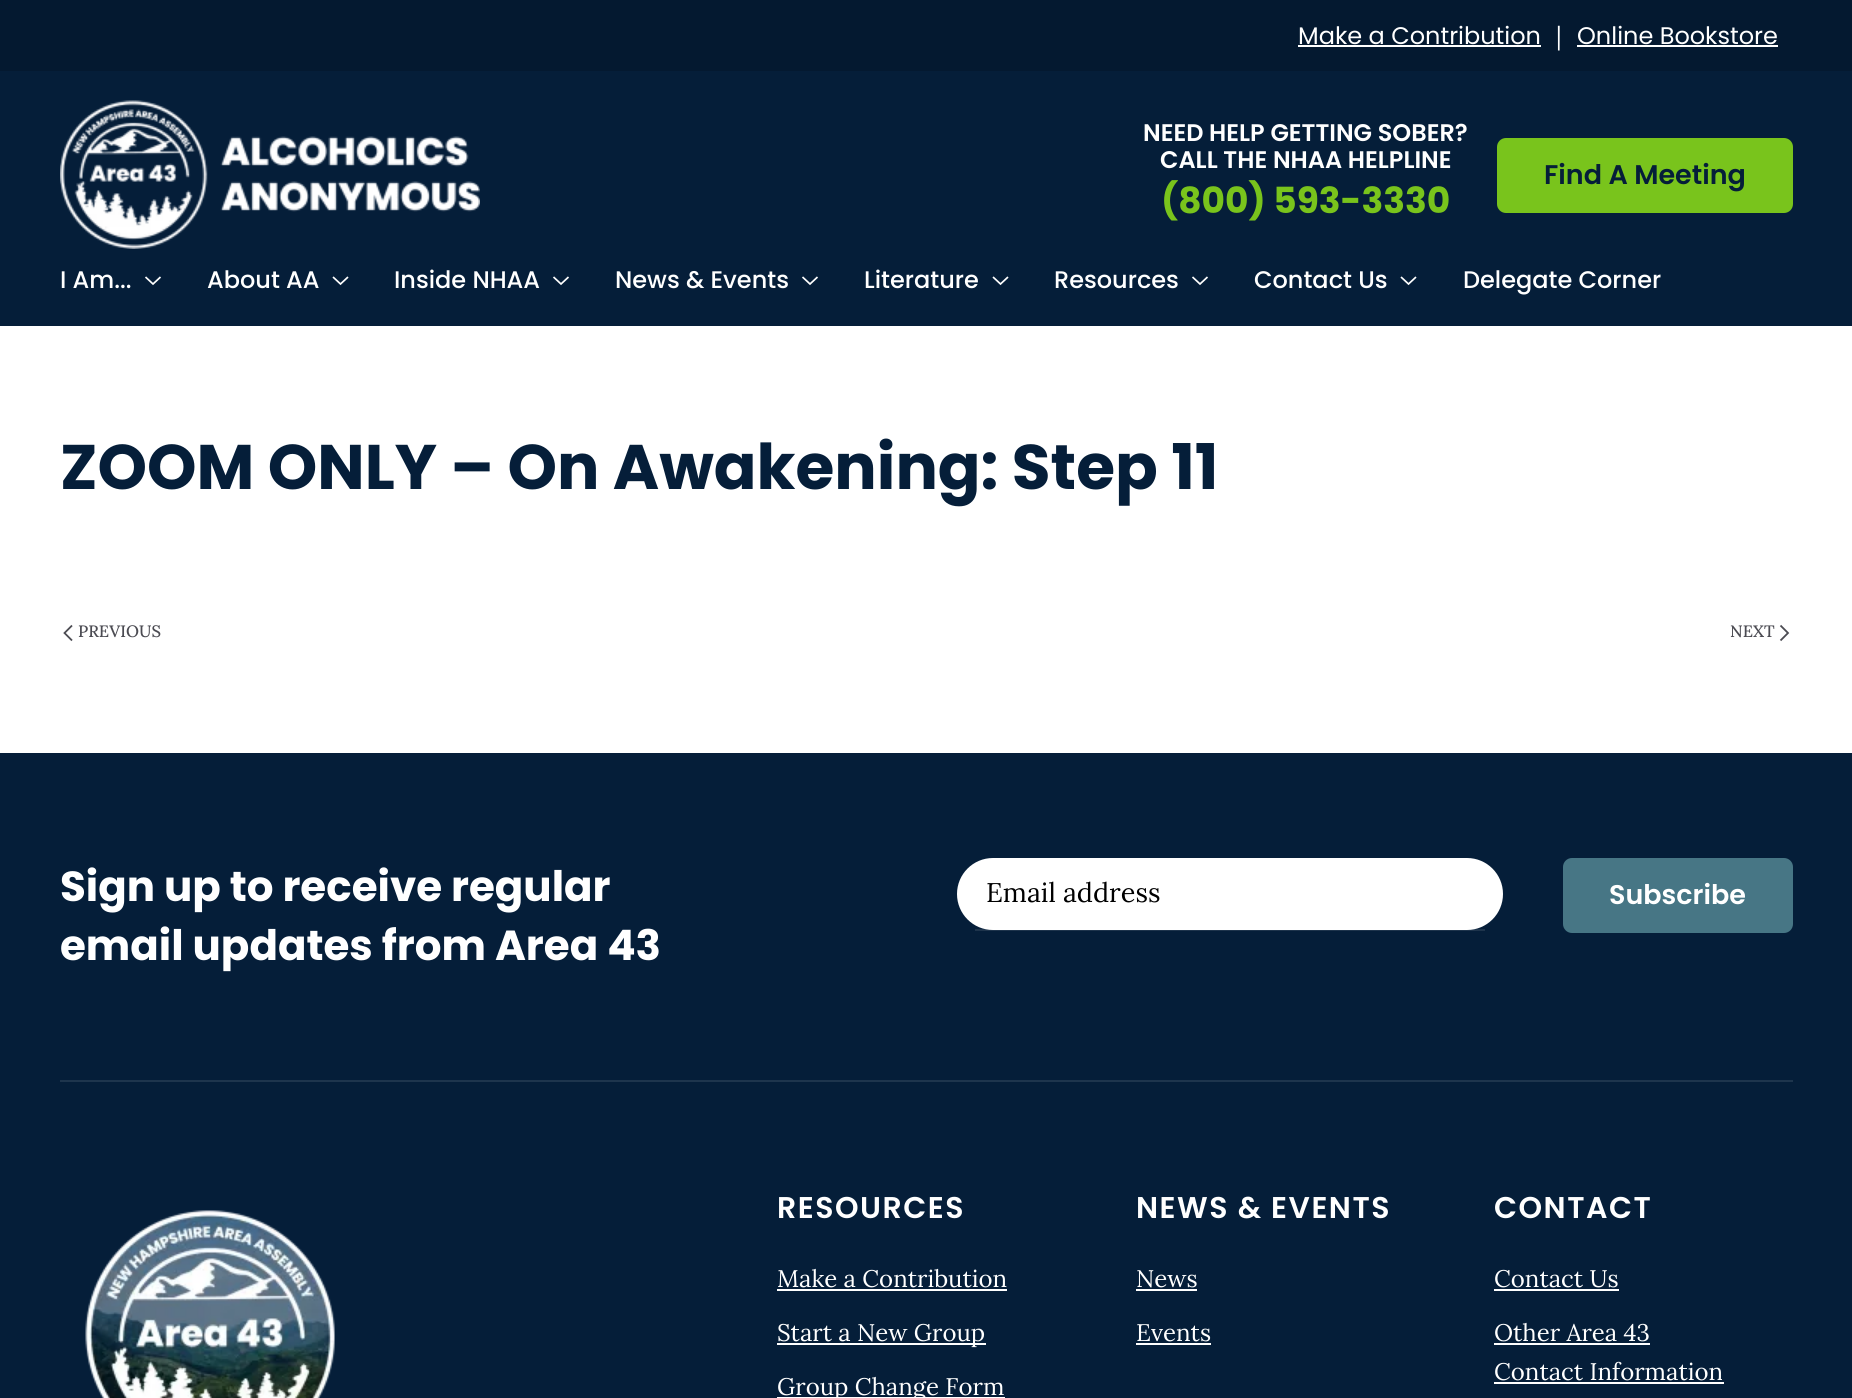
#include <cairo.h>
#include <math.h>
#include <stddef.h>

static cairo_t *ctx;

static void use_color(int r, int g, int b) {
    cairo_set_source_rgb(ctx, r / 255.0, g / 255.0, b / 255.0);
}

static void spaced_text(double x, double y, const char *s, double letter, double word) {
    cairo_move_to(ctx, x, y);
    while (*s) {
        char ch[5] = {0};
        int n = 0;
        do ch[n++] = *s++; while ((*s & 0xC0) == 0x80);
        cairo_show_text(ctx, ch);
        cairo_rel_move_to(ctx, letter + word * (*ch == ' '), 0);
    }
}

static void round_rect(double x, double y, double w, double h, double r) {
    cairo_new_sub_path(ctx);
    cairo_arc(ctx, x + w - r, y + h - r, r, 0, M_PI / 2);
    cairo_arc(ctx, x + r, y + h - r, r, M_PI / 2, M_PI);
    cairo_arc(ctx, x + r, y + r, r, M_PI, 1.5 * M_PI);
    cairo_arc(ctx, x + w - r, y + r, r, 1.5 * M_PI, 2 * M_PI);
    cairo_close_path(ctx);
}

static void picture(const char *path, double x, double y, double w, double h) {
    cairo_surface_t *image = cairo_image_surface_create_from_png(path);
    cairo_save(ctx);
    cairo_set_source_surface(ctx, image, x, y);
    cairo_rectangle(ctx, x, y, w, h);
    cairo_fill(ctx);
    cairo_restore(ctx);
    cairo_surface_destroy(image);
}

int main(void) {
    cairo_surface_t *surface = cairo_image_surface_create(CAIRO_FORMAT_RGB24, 1852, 1398);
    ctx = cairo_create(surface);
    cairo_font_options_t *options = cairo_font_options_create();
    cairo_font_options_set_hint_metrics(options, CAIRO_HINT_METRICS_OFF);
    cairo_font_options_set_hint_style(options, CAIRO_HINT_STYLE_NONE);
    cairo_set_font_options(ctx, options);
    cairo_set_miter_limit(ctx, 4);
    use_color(255, 255, 255);
    cairo_paint(ctx);
    use_color(4, 25, 48);
    cairo_rectangle(ctx, 0, 0, 1852, 71);
    cairo_fill(ctx);
    cairo_select_font_face(ctx, "Poppins", CAIRO_FONT_SLANT_NORMAL, CAIRO_FONT_WEIGHT_NORMAL);
    cairo_set_font_size(ctx, 24);
    use_color(255, 255, 255);
    cairo_move_to(ctx, 1298, 44);
    cairo_show_text(ctx, "Make a Contribution");
    cairo_rectangle(ctx, 1298, 45, 243, 2);
    cairo_fill(ctx);
    cairo_select_font_face(ctx, "Lora", CAIRO_FONT_SLANT_NORMAL, CAIRO_FONT_WEIGHT_NORMAL);
    cairo_move_to(ctx, 1556, 44);
    cairo_show_text(ctx, "|");
    cairo_select_font_face(ctx, "Poppins", CAIRO_FONT_SLANT_NORMAL, CAIRO_FONT_WEIGHT_NORMAL);
    cairo_move_to(ctx, 1577, 44);
    cairo_show_text(ctx, "Online Bookstore");
    cairo_rectangle(ctx, 1577, 45, 201, 2);
    cairo_fill(ctx);
    use_color(5, 30, 57);
    cairo_rectangle(ctx, 0, 71, 1852, 255);
    cairo_fill(ctx);
    picture("img1.png", 60, 100, 420, 149);
    cairo_select_font_face(ctx, "Poppins SemiBold", CAIRO_FONT_SLANT_NORMAL, CAIRO_FONT_WEIGHT_NORMAL);
    use_color(255, 255, 255);
    cairo_move_to(ctx, 1143, 141);
    cairo_show_text(ctx, "NEED HELP GETTING SOBER?");
    cairo_move_to(ctx, 1160, 168);
    cairo_show_text(ctx, "CALL THE NHAA HELPLINE");
    cairo_select_font_face(ctx, "Poppins", CAIRO_FONT_SLANT_NORMAL, CAIRO_FONT_WEIGHT_BOLD);
    cairo_set_font_size(ctx, 36);
    use_color(121, 196, 28);
    cairo_move_to(ctx, 1161, 213);
    cairo_show_text(ctx, "(800) 593-3330");
    round_rect(1497, 138, 296, 75, 9);
    cairo_fill(ctx);
    cairo_select_font_face(ctx, "Poppins SemiBold", CAIRO_FONT_SLANT_NORMAL, CAIRO_FONT_WEIGHT_NORMAL);
    cairo_set_font_size(ctx, 27);
    use_color(5, 30, 57);
    cairo_move_to(ctx, 1544, 184);
    cairo_show_text(ctx, "Find A Meeting");
    cairo_select_font_face(ctx, "Poppins Medium", CAIRO_FONT_SLANT_NORMAL, CAIRO_FONT_WEIGHT_NORMAL);
    cairo_set_font_size(ctx, 24);
    use_color(255, 255, 255);
    cairo_move_to(ctx, 60, 288);
    cairo_show_text(ctx, "I Am...");
    cairo_new_path(ctx);
    cairo_move_to(ctx, 145.5, 277);
    cairo_line_to(ctx, 153, 284);
    cairo_line_to(ctx, 160.5, 277);
    cairo_set_line_width(ctx, 1.7);
    cairo_stroke(ctx);
    cairo_move_to(ctx, 207, 288);
    cairo_show_text(ctx, "About AA");
    cairo_new_path(ctx);
    cairo_move_to(ctx, 333, 277);
    cairo_line_to(ctx, 340.5, 284);
    cairo_line_to(ctx, 348, 277);
    cairo_stroke(ctx);
    cairo_move_to(ctx, 394, 288);
    cairo_show_text(ctx, "Inside NHAA");
    cairo_new_path(ctx);
    cairo_move_to(ctx, 553.5, 277);
    cairo_line_to(ctx, 561, 284);
    cairo_line_to(ctx, 568.5, 277);
    cairo_stroke(ctx);
    cairo_move_to(ctx, 615, 288);
    cairo_show_text(ctx, "News & Events");
    cairo_new_path(ctx);
    cairo_move_to(ctx, 802.5, 277);
    cairo_line_to(ctx, 810, 284);
    cairo_line_to(ctx, 817.5, 277);
    cairo_stroke(ctx);
    cairo_move_to(ctx, 864, 288);
    cairo_show_text(ctx, "Literature");
    cairo_new_path(ctx);
    cairo_move_to(ctx, 993, 277);
    cairo_line_to(ctx, 1000.5, 284);
    cairo_line_to(ctx, 1008, 277);
    cairo_stroke(ctx);
    cairo_move_to(ctx, 1054, 288);
    cairo_show_text(ctx, "Resources");
    cairo_new_path(ctx);
    cairo_move_to(ctx, 1192.5, 277);
    cairo_line_to(ctx, 1200, 284);
    cairo_line_to(ctx, 1207.5, 277);
    cairo_stroke(ctx);
    cairo_move_to(ctx, 1254, 288);
    cairo_show_text(ctx, "Contact Us");
    cairo_new_path(ctx);
    cairo_move_to(ctx, 1401, 277);
    cairo_line_to(ctx, 1408.5, 284);
    cairo_line_to(ctx, 1416, 277);
    cairo_stroke(ctx);
    cairo_move_to(ctx, 1463, 288);
    cairo_show_text(ctx, "Delegate Corner");
    cairo_select_font_face(ctx, "Poppins", CAIRO_FONT_SLANT_NORMAL, CAIRO_FONT_WEIGHT_BOLD);
    cairo_set_font_size(ctx, 63);
    use_color(5, 30, 57);
    cairo_move_to(ctx, 60, 489);
    cairo_show_text(ctx, "ZOOM ONLY – On Awakening: Step 11");
    cairo_new_path(ctx);
    cairo_move_to(ctx, 72, 625.5);
    cairo_line_to(ctx, 64.5, 633);
    cairo_line_to(ctx, 72, 640.5);
    use_color(75, 75, 82);
    cairo_set_line_width(ctx, 1.8);
    cairo_stroke(ctx);
    cairo_select_font_face(ctx, "Lora Medium", CAIRO_FONT_SLANT_NORMAL, CAIRO_FONT_WEIGHT_NORMAL);
    cairo_set_font_size(ctx, 16.5);
    cairo_move_to(ctx, 78, 637);
    cairo_show_text(ctx, "PREVIOUS");
    cairo_move_to(ctx, 1730, 637);
    cairo_show_text(ctx, "NEXT");
    cairo_new_path(ctx);
    cairo_move_to(ctx, 1780.5, 625.5);
    cairo_line_to(ctx, 1788, 633);
    cairo_line_to(ctx, 1780.5, 640.5);
    cairo_stroke(ctx);
    use_color(5, 30, 57);
    cairo_rectangle(ctx, 0, 753, 1852, 645);
    cairo_fill(ctx);
    cairo_select_font_face(ctx, "Poppins", CAIRO_FONT_SLANT_NORMAL, CAIRO_FONT_WEIGHT_BOLD);
    cairo_set_font_size(ctx, 42);
    use_color(255, 255, 255);
    cairo_move_to(ctx, 60, 901);
    cairo_show_text(ctx, "Sign up to receive regular");
    cairo_move_to(ctx, 60, 960);
    cairo_show_text(ctx, "email updates from Area 43");
    round_rect(957, 858, 546, 72, 36);
    cairo_fill(ctx);
    cairo_set_source_rgba(ctx, 1, 1, 1, 0.1);
    cairo_rectangle(ctx, 975, 929, 510, 2);
    cairo_fill(ctx);
    cairo_select_font_face(ctx, "Lora", CAIRO_FONT_SLANT_NORMAL, CAIRO_FONT_WEIGHT_NORMAL);
    cairo_set_font_size(ctx, 27);
    use_color(0, 0, 0);
    cairo_move_to(ctx, 986, 902);
    cairo_show_text(ctx, "Email address");
    use_color(71, 118, 133);
    round_rect(1563, 858, 230, 75, 9);
    cairo_fill(ctx);
    cairo_select_font_face(ctx, "Poppins SemiBold", CAIRO_FONT_SLANT_NORMAL, CAIRO_FONT_WEIGHT_NORMAL);
    use_color(255, 255, 255);
    cairo_move_to(ctx, 1609, 904);
    cairo_show_text(ctx, "Subscribe");
    use_color(30, 53, 77);
    cairo_rectangle(ctx, 60, 1080, 1733, 2);
    cairo_fill(ctx);
    picture("img2.png", 85, 1210, 250, 188);
    cairo_set_font_size(ctx, 30);
    use_color(255, 255, 255);
    spaced_text(777, 1218, "RESOURCES", 1.5, 0);
    cairo_select_font_face(ctx, "Lora", CAIRO_FONT_SLANT_NORMAL, CAIRO_FONT_WEIGHT_NORMAL);
    cairo_set_font_size(ctx, 24);
    cairo_move_to(ctx, 777, 1287);
    cairo_show_text(ctx, "Make a Contribution");
    cairo_rectangle(ctx, 777, 1289, 230, 2);
    cairo_fill(ctx);
    cairo_rectangle(ctx, 777, 1343, 209, 2);
    cairo_fill(ctx);
    cairo_move_to(ctx, 777, 1341);
    cairo_show_text(ctx, "Start a New Group");
    cairo_rectangle(ctx, 777, 1397, 228, 1);
    cairo_fill(ctx);
    cairo_move_to(ctx, 777, 1395);
    cairo_show_text(ctx, "Group Change Form");
    cairo_select_font_face(ctx, "Poppins SemiBold", CAIRO_FONT_SLANT_NORMAL, CAIRO_FONT_WEIGHT_NORMAL);
    cairo_set_font_size(ctx, 30);
    spaced_text(1136, 1218, "NEWS & EVENTS", 1.5, 0);
    cairo_select_font_face(ctx, "Lora", CAIRO_FONT_SLANT_NORMAL, CAIRO_FONT_WEIGHT_NORMAL);
    cairo_set_font_size(ctx, 24);
    cairo_move_to(ctx, 1136, 1287);
    cairo_show_text(ctx, "News");
    cairo_rectangle(ctx, 1136, 1289, 61, 2);
    cairo_fill(ctx);
    cairo_move_to(ctx, 1136, 1341);
    cairo_show_text(ctx, "Events");
    cairo_rectangle(ctx, 1136, 1343, 75, 2);
    cairo_fill(ctx);
    cairo_select_font_face(ctx, "Poppins SemiBold", CAIRO_FONT_SLANT_NORMAL, CAIRO_FONT_WEIGHT_NORMAL);
    cairo_set_font_size(ctx, 30);
    spaced_text(1494, 1218, "CONTACT", 1.5, 0);
    cairo_select_font_face(ctx, "Lora", CAIRO_FONT_SLANT_NORMAL, CAIRO_FONT_WEIGHT_NORMAL);
    cairo_set_font_size(ctx, 24);
    cairo_move_to(ctx, 1494, 1287);
    cairo_show_text(ctx, "Contact Us");
    cairo_rectangle(ctx, 1494, 1289, 125, 2);
    cairo_fill(ctx);
    cairo_move_to(ctx, 1494, 1341);
    cairo_show_text(ctx, "Other Area 43");
    cairo_rectangle(ctx, 1494, 1343, 156, 2);
    cairo_fill(ctx);
    cairo_move_to(ctx, 1494, 1380);
    cairo_show_text(ctx, "Contact Information");
    cairo_rectangle(ctx, 1494, 1382, 230, 2);
    cairo_fill(ctx);
    cairo_surface_write_to_png(surface, "result.png");
    cairo_font_options_destroy(options);
    cairo_destroy(ctx);
    cairo_surface_destroy(surface);
    return 0;
}
